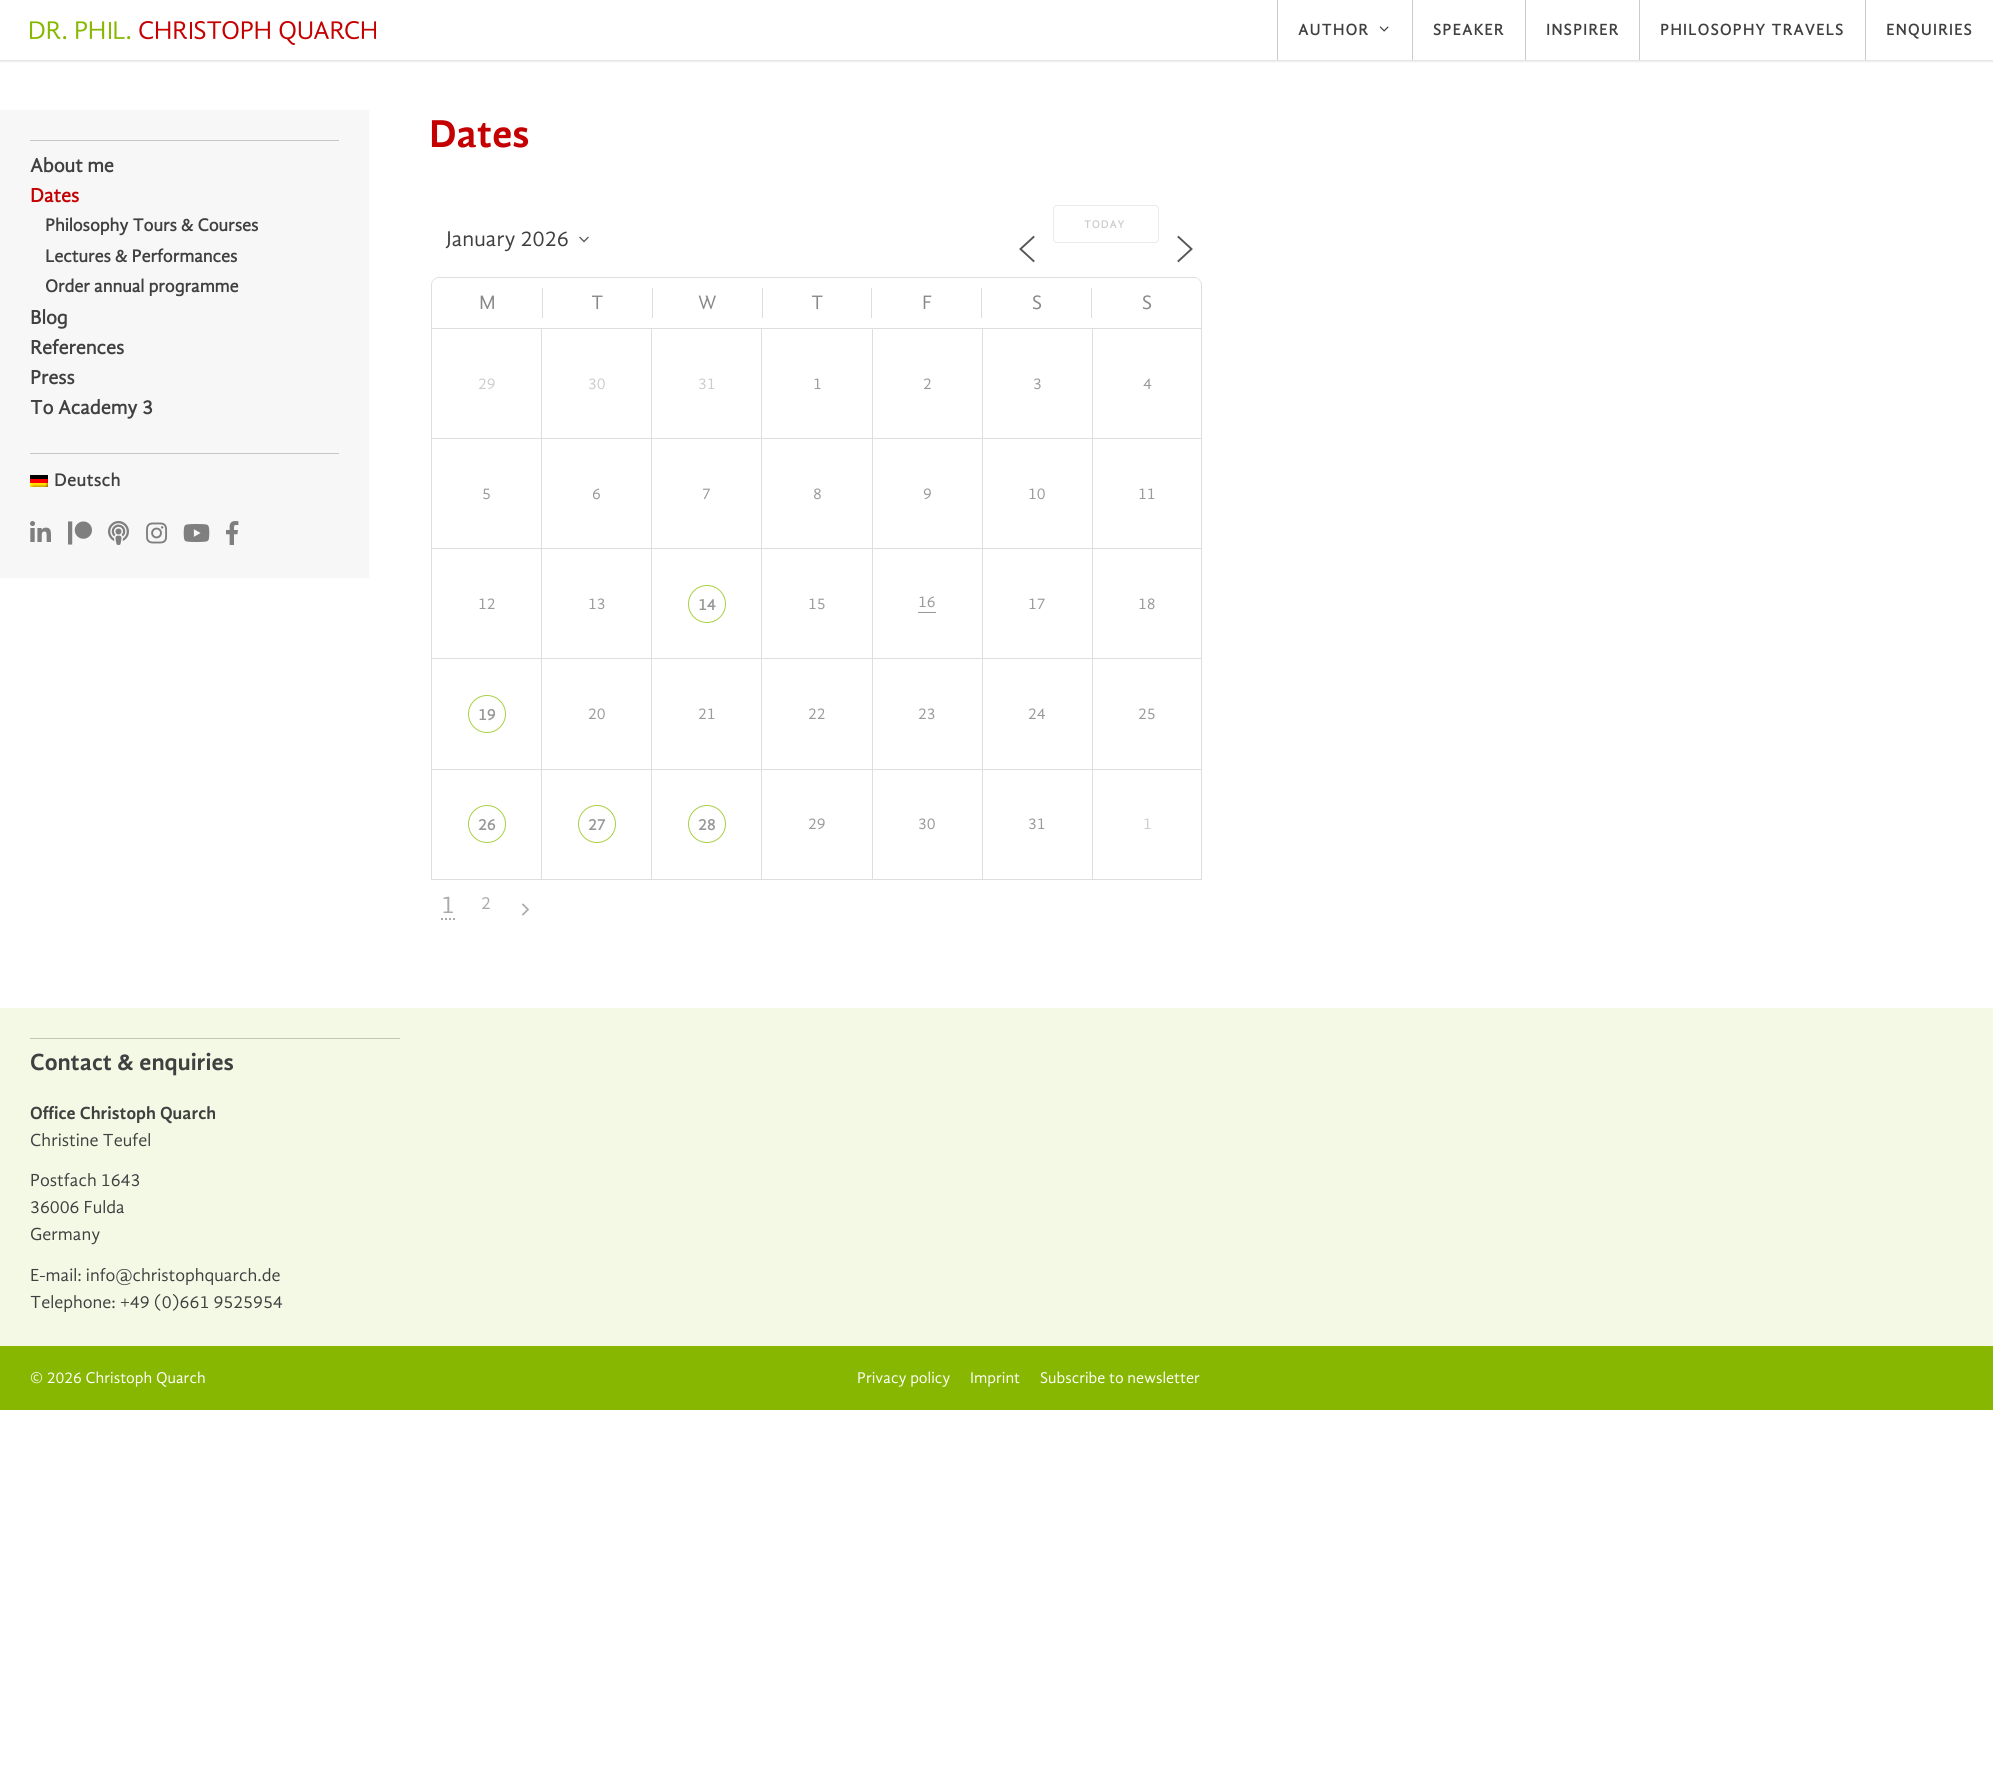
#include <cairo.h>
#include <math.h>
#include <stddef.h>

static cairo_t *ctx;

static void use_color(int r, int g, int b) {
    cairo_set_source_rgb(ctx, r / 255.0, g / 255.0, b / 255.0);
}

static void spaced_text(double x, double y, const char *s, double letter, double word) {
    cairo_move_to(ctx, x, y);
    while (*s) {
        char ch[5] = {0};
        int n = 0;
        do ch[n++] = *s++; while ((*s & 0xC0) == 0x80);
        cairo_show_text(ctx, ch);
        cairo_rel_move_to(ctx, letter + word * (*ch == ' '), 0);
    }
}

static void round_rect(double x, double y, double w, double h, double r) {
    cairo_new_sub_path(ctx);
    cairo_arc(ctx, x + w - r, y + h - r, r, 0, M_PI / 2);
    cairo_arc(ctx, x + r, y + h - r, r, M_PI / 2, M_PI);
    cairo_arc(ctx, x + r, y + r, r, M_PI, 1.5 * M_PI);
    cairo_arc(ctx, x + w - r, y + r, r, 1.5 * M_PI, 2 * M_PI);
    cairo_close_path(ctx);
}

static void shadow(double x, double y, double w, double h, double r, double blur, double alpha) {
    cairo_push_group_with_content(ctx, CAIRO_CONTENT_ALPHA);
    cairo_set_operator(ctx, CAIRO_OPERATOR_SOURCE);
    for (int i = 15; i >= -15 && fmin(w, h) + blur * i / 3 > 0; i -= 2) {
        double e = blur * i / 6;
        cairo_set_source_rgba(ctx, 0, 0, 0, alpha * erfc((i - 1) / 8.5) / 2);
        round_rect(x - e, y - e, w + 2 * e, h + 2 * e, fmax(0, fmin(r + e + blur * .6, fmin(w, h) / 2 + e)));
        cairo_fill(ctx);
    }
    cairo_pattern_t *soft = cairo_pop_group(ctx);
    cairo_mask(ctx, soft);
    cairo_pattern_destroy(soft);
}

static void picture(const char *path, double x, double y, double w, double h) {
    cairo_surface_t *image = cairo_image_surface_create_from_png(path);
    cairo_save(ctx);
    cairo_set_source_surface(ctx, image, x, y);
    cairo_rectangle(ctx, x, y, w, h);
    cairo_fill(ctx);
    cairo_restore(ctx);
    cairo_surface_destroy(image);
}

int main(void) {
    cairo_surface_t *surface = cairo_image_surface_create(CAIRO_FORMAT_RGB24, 1993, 1779);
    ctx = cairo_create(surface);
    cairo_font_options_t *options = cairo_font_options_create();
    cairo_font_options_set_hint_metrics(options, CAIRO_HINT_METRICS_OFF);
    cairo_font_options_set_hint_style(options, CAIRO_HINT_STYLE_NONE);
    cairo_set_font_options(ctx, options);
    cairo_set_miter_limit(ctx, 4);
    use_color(255, 255, 255);
    cairo_paint(ctx);
    cairo_save(ctx);
    cairo_rectangle(ctx, 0, 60, 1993, 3);
    cairo_clip(ctx);
    use_color(0, 0, 0);
    shadow(0, 0, 1993, 60, 0, 2, 0.25);
    cairo_restore(ctx);
    picture("img1.png", 30, 21, 346, 24);
    use_color(204, 204, 204);
    cairo_rectangle(ctx, 1277, 0, 1, 60);
    cairo_fill(ctx);
    cairo_select_font_face(ctx, "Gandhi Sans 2", CAIRO_FONT_SLANT_NORMAL, CAIRO_FONT_WEIGHT_BOLD);
    cairo_set_font_size(ctx, 16);
    use_color(64, 64, 64);
    spaced_text(1298, 35, "AUTHOR", 1.25, 0);
    picture("img2.png", 1379, 26, 10, 6);
    use_color(204, 204, 204);
    cairo_rectangle(ctx, 1412, 0, 1, 60);
    cairo_fill(ctx);
    use_color(64, 64, 64);
    spaced_text(1433, 35, "SPEAKER", 1.25, 0);
    use_color(204, 204, 204);
    cairo_rectangle(ctx, 1525, 0, 1, 60);
    cairo_fill(ctx);
    use_color(64, 64, 64);
    spaced_text(1546, 35, "INSPIRER", 1.25, 0);
    use_color(204, 204, 204);
    cairo_rectangle(ctx, 1639, 0, 1, 60);
    cairo_fill(ctx);
    use_color(64, 64, 64);
    spaced_text(1660, 35, "PHILOSOPHY TRAVELS", 1.25, 0);
    use_color(204, 204, 204);
    cairo_rectangle(ctx, 1865, 0, 1, 60);
    cairo_fill(ctx);
    use_color(64, 64, 64);
    spaced_text(1886, 35, "ENQUIRIES", 1.25, 0);
    use_color(247, 247, 247);
    cairo_rectangle(ctx, 0, 110, 369, 468);
    cairo_fill(ctx);
    use_color(198, 198, 198);
    cairo_rectangle(ctx, 30, 140, 309, 1);
    cairo_fill(ctx);
    cairo_set_font_size(ctx, 20);
    use_color(64, 64, 64);
    cairo_move_to(ctx, 30, 172);
    cairo_show_text(ctx, "About me");
    use_color(196, 0, 0);
    cairo_move_to(ctx, 30, 202);
    cairo_show_text(ctx, "Dates");
    cairo_set_font_size(ctx, 18);
    use_color(64, 64, 64);
    cairo_move_to(ctx, 45, 231);
    cairo_show_text(ctx, "Philosophy Tours & Courses");
    cairo_move_to(ctx, 45, 262);
    cairo_show_text(ctx, "Lectures & Performances");
    cairo_move_to(ctx, 45, 292);
    cairo_show_text(ctx, "Order annual programme");
    cairo_set_font_size(ctx, 20);
    cairo_move_to(ctx, 30, 324);
    cairo_show_text(ctx, "Blog");
    cairo_move_to(ctx, 30, 354);
    cairo_show_text(ctx, "References");
    cairo_move_to(ctx, 30, 384);
    cairo_show_text(ctx, "Press");
    cairo_move_to(ctx, 30, 414);
    cairo_show_text(ctx, "To Academy 3");
    use_color(198, 198, 198);
    cairo_rectangle(ctx, 30, 453, 309, 1);
    cairo_fill(ctx);
    picture("img3.png", 30, 475, 18, 12);
    cairo_set_font_size(ctx, 18);
    use_color(64, 64, 64);
    spaced_text(54, 486, "Deutsch", 0.5, 0);
    picture("img4.png", 30, 521, 21, 21);
    picture("img5.png", 68, 521, 24, 24);
    picture("img6.png", 108, 521, 21, 24);
    picture("img7.png", 146, 522, 22, 22);
    picture("img8.png", 183, 524, 27, 18);
    picture("img9.png", 226, 521, 13, 24);
    cairo_select_font_face(ctx, "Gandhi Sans", CAIRO_FONT_SLANT_NORMAL, CAIRO_FONT_WEIGHT_BOLD);
    cairo_set_font_size(ctx, 40);
    use_color(196, 0, 0);
    cairo_move_to(ctx, 429, 147);
    cairo_show_text(ctx, "Dates");
    round_rect(1053.5, 205.5, 105, 37, 3.5);
    use_color(234, 234, 234);
    cairo_set_line_width(ctx, 1);
    cairo_stroke(ctx);
    cairo_select_font_face(ctx, "Gandhi Sans 2", CAIRO_FONT_SLANT_NORMAL, CAIRO_FONT_WEIGHT_BOLD);
    cairo_set_font_size(ctx, 11);
    use_color(204, 204, 204);
    spaced_text(1084, 228, "TODAY", 1, 0);
    cairo_new_path(ctx);
    cairo_move_to(ctx, 1033.5, 261);
    cairo_line_to(ctx, 1020.5, 249);
    cairo_line_to(ctx, 1033.5, 237);
    use_color(85, 85, 85);
    cairo_set_line_width(ctx, 1.9);
    cairo_set_line_cap(ctx, CAIRO_LINE_CAP_SQUARE);
    cairo_stroke(ctx);
    cairo_new_path(ctx);
    cairo_move_to(ctx, 1178.5, 261);
    cairo_line_to(ctx, 1191.5, 249);
    cairo_line_to(ctx, 1178.5, 237);
    cairo_stroke(ctx);
    cairo_new_path(ctx);
    cairo_move_to(ctx, 580, 237.5);
    cairo_line_to(ctx, 584, 241.5);
    cairo_line_to(ctx, 588, 237.5);
    cairo_set_line_width(ctx, 1.3);
    cairo_stroke(ctx);
    cairo_select_font_face(ctx, "Gandhi Sans", CAIRO_FONT_SLANT_NORMAL, CAIRO_FONT_WEIGHT_NORMAL);
    cairo_set_font_size(ctx, 22);
    use_color(64, 64, 64);
    cairo_move_to(ctx, 446, 246);
    cairo_show_text(ctx, "January 2026");
    use_color(222, 222, 222);
    cairo_set_fill_rule(ctx, CAIRO_FILL_RULE_EVEN_ODD);
    cairo_new_path(ctx);
    cairo_move_to(ctx, 439, 277);
    cairo_line_to(ctx, 1194, 277);
    cairo_curve_to(ctx, 1198, 277, 1202, 281, 1202, 285);
    cairo_line_to(ctx, 1202, 328);
    cairo_line_to(ctx, 431, 328);
    cairo_line_to(ctx, 431, 285);
    cairo_curve_to(ctx, 431, 281, 435, 277, 439, 277);
    cairo_close_path(ctx);
    cairo_move_to(ctx, 439, 278);
    cairo_line_to(ctx, 1194, 278);
    cairo_curve_to(ctx, 1198, 278, 1201, 281, 1201, 285);
    cairo_line_to(ctx, 1201, 328);
    cairo_line_to(ctx, 432, 328);
    cairo_line_to(ctx, 432, 285);
    cairo_curve_to(ctx, 432, 281, 435, 278, 439, 278);
    cairo_close_path(ctx);
    cairo_fill(ctx);
    cairo_set_font_size(ctx, 20);
    use_color(136, 136, 136);
    cairo_move_to(ctx, 479, 309);
    cairo_show_text(ctx, "M");
    use_color(222, 222, 222);
    cairo_rectangle(ctx, 542, 288, 1, 30);
    cairo_fill(ctx);
    use_color(136, 136, 136);
    cairo_move_to(ctx, 591, 309);
    cairo_show_text(ctx, "T");
    use_color(222, 222, 222);
    cairo_rectangle(ctx, 652, 288, 1, 30);
    cairo_fill(ctx);
    use_color(136, 136, 136);
    cairo_move_to(ctx, 698, 309);
    cairo_show_text(ctx, "W");
    use_color(222, 222, 222);
    cairo_rectangle(ctx, 762, 288, 1, 30);
    cairo_fill(ctx);
    use_color(136, 136, 136);
    cairo_move_to(ctx, 811, 309);
    cairo_show_text(ctx, "T");
    use_color(222, 222, 222);
    cairo_rectangle(ctx, 871, 288, 1, 30);
    cairo_fill(ctx);
    use_color(136, 136, 136);
    cairo_move_to(ctx, 922, 309);
    cairo_show_text(ctx, "F");
    use_color(222, 222, 222);
    cairo_rectangle(ctx, 981, 288, 1, 30);
    cairo_fill(ctx);
    use_color(136, 136, 136);
    cairo_move_to(ctx, 1032, 309);
    cairo_show_text(ctx, "S");
    use_color(222, 222, 222);
    cairo_rectangle(ctx, 1091, 288, 1, 30);
    cairo_fill(ctx);
    use_color(136, 136, 136);
    cairo_move_to(ctx, 1142, 309);
    cairo_show_text(ctx, "S");
    use_color(222, 222, 222);
    cairo_rectangle(ctx, 431, 879, 771, 1);
    cairo_fill(ctx);
    cairo_rectangle(ctx, 431, 328, 771, 1);
    cairo_fill(ctx);
    cairo_rectangle(ctx, 431, 328, 1, 110);
    cairo_fill(ctx);
    cairo_set_font_size(ctx, 16);
    use_color(204, 204, 204);
    cairo_move_to(ctx, 478, 389);
    cairo_show_text(ctx, "29");
    use_color(222, 222, 222);
    cairo_rectangle(ctx, 541, 328, 1, 110);
    cairo_fill(ctx);
    use_color(204, 204, 204);
    cairo_move_to(ctx, 588, 389);
    cairo_show_text(ctx, "30");
    use_color(222, 222, 222);
    cairo_rectangle(ctx, 651, 328, 1, 110);
    cairo_fill(ctx);
    use_color(204, 204, 204);
    cairo_move_to(ctx, 698, 389);
    cairo_show_text(ctx, "31");
    use_color(222, 222, 222);
    cairo_rectangle(ctx, 761, 328, 1, 110);
    cairo_fill(ctx);
    use_color(153, 153, 153);
    cairo_move_to(ctx, 813, 389);
    cairo_show_text(ctx, "1");
    use_color(222, 222, 222);
    cairo_rectangle(ctx, 872, 328, 1, 110);
    cairo_fill(ctx);
    use_color(153, 153, 153);
    cairo_move_to(ctx, 923, 389);
    cairo_show_text(ctx, "2");
    use_color(222, 222, 222);
    cairo_rectangle(ctx, 982, 328, 1, 110);
    cairo_fill(ctx);
    use_color(153, 153, 153);
    cairo_move_to(ctx, 1033, 389);
    cairo_show_text(ctx, "3");
    use_color(222, 222, 222);
    cairo_rectangle(ctx, 1201, 328, 1, 110);
    cairo_fill(ctx);
    cairo_rectangle(ctx, 1092, 328, 1, 110);
    cairo_fill(ctx);
    use_color(153, 153, 153);
    cairo_move_to(ctx, 1143, 389);
    cairo_show_text(ctx, "4");
    use_color(222, 222, 222);
    cairo_rectangle(ctx, 431, 438, 771, 1);
    cairo_fill(ctx);
    cairo_rectangle(ctx, 431, 438, 1, 110);
    cairo_fill(ctx);
    use_color(153, 153, 153);
    cairo_move_to(ctx, 482, 499);
    cairo_show_text(ctx, "5");
    use_color(222, 222, 222);
    cairo_rectangle(ctx, 541, 438, 1, 110);
    cairo_fill(ctx);
    use_color(153, 153, 153);
    cairo_move_to(ctx, 592, 499);
    cairo_show_text(ctx, "6");
    use_color(222, 222, 222);
    cairo_rectangle(ctx, 651, 438, 1, 110);
    cairo_fill(ctx);
    use_color(153, 153, 153);
    cairo_move_to(ctx, 702, 499);
    cairo_show_text(ctx, "7");
    use_color(222, 222, 222);
    cairo_rectangle(ctx, 761, 438, 1, 110);
    cairo_fill(ctx);
    use_color(153, 153, 153);
    cairo_move_to(ctx, 813, 499);
    cairo_show_text(ctx, "8");
    use_color(222, 222, 222);
    cairo_rectangle(ctx, 872, 438, 1, 110);
    cairo_fill(ctx);
    use_color(153, 153, 153);
    cairo_move_to(ctx, 923, 499);
    cairo_show_text(ctx, "9");
    use_color(222, 222, 222);
    cairo_rectangle(ctx, 982, 438, 1, 110);
    cairo_fill(ctx);
    use_color(153, 153, 153);
    cairo_move_to(ctx, 1028, 499);
    cairo_show_text(ctx, "10");
    use_color(222, 222, 222);
    cairo_rectangle(ctx, 1201, 438, 1, 110);
    cairo_fill(ctx);
    cairo_rectangle(ctx, 1092, 438, 1, 110);
    cairo_fill(ctx);
    use_color(153, 153, 153);
    cairo_move_to(ctx, 1138, 499);
    cairo_show_text(ctx, "11");
    use_color(222, 222, 222);
    cairo_rectangle(ctx, 431, 548, 771, 1);
    cairo_fill(ctx);
    cairo_rectangle(ctx, 431, 548, 1, 110);
    cairo_fill(ctx);
    use_color(153, 153, 153);
    cairo_move_to(ctx, 478, 609);
    cairo_show_text(ctx, "12");
    use_color(222, 222, 222);
    cairo_rectangle(ctx, 541, 548, 1, 110);
    cairo_fill(ctx);
    use_color(153, 153, 153);
    cairo_move_to(ctx, 588, 609);
    cairo_show_text(ctx, "13");
    use_color(222, 222, 222);
    cairo_rectangle(ctx, 651, 548, 1, 110);
    cairo_fill(ctx);
    cairo_arc(ctx, 707, 604, 18.5, 0, 2 * M_PI);
    use_color(168, 209, 68);
    cairo_set_line_width(ctx, 1);
    cairo_set_line_cap(ctx, CAIRO_LINE_CAP_BUTT);
    cairo_stroke(ctx);
    cairo_select_font_face(ctx, "Gandhi Sans 2", CAIRO_FONT_SLANT_NORMAL, CAIRO_FONT_WEIGHT_BOLD);
    use_color(153, 153, 153);
    cairo_move_to(ctx, 698, 610);
    cairo_show_text(ctx, "14");
    use_color(222, 222, 222);
    cairo_rectangle(ctx, 761, 548, 1, 110);
    cairo_fill(ctx);
    cairo_select_font_face(ctx, "Gandhi Sans", CAIRO_FONT_SLANT_NORMAL, CAIRO_FONT_WEIGHT_NORMAL);
    use_color(153, 153, 153);
    cairo_move_to(ctx, 808, 609);
    cairo_show_text(ctx, "15");
    use_color(222, 222, 222);
    cairo_rectangle(ctx, 872, 548, 1, 110);
    cairo_fill(ctx);
    use_color(153, 153, 153);
    cairo_move_to(ctx, 918, 607);
    cairo_show_text(ctx, "16");
    cairo_rectangle(ctx, 918, 612, 18, 1);
    cairo_fill(ctx);
    use_color(222, 222, 222);
    cairo_rectangle(ctx, 982, 548, 1, 110);
    cairo_fill(ctx);
    use_color(153, 153, 153);
    cairo_move_to(ctx, 1028, 609);
    cairo_show_text(ctx, "17");
    use_color(222, 222, 222);
    cairo_rectangle(ctx, 1201, 548, 1, 110);
    cairo_fill(ctx);
    cairo_rectangle(ctx, 1092, 548, 1, 110);
    cairo_fill(ctx);
    use_color(153, 153, 153);
    cairo_move_to(ctx, 1138, 609);
    cairo_show_text(ctx, "18");
    use_color(222, 222, 222);
    cairo_rectangle(ctx, 431, 658, 771, 1);
    cairo_fill(ctx);
    cairo_rectangle(ctx, 431, 658, 1, 111);
    cairo_fill(ctx);
    cairo_arc(ctx, 487, 714, 18.5, 0, 2 * M_PI);
    use_color(168, 209, 68);
    cairo_stroke(ctx);
    cairo_select_font_face(ctx, "Gandhi Sans 2", CAIRO_FONT_SLANT_NORMAL, CAIRO_FONT_WEIGHT_BOLD);
    use_color(153, 153, 153);
    cairo_move_to(ctx, 478, 720);
    cairo_show_text(ctx, "19");
    use_color(222, 222, 222);
    cairo_rectangle(ctx, 541, 658, 1, 111);
    cairo_fill(ctx);
    cairo_select_font_face(ctx, "Gandhi Sans", CAIRO_FONT_SLANT_NORMAL, CAIRO_FONT_WEIGHT_NORMAL);
    use_color(153, 153, 153);
    cairo_move_to(ctx, 588, 719);
    cairo_show_text(ctx, "20");
    use_color(222, 222, 222);
    cairo_rectangle(ctx, 651, 658, 1, 111);
    cairo_fill(ctx);
    use_color(153, 153, 153);
    cairo_move_to(ctx, 698, 719);
    cairo_show_text(ctx, "21");
    use_color(222, 222, 222);
    cairo_rectangle(ctx, 761, 658, 1, 111);
    cairo_fill(ctx);
    use_color(153, 153, 153);
    cairo_move_to(ctx, 808, 719);
    cairo_show_text(ctx, "22");
    use_color(222, 222, 222);
    cairo_rectangle(ctx, 872, 658, 1, 111);
    cairo_fill(ctx);
    use_color(153, 153, 153);
    cairo_move_to(ctx, 918, 719);
    cairo_show_text(ctx, "23");
    use_color(222, 222, 222);
    cairo_rectangle(ctx, 982, 658, 1, 111);
    cairo_fill(ctx);
    use_color(153, 153, 153);
    cairo_move_to(ctx, 1028, 719);
    cairo_show_text(ctx, "24");
    use_color(222, 222, 222);
    cairo_rectangle(ctx, 1201, 658, 1, 111);
    cairo_fill(ctx);
    cairo_rectangle(ctx, 1092, 658, 1, 111);
    cairo_fill(ctx);
    use_color(153, 153, 153);
    cairo_move_to(ctx, 1138, 719);
    cairo_show_text(ctx, "25");
    use_color(222, 222, 222);
    cairo_rectangle(ctx, 431, 769, 771, 1);
    cairo_fill(ctx);
    cairo_rectangle(ctx, 431, 769, 1, 110);
    cairo_fill(ctx);
    cairo_arc(ctx, 487, 824, 18.5, 0, 2 * M_PI);
    use_color(168, 209, 68);
    cairo_stroke(ctx);
    cairo_select_font_face(ctx, "Gandhi Sans 2", CAIRO_FONT_SLANT_NORMAL, CAIRO_FONT_WEIGHT_BOLD);
    use_color(153, 153, 153);
    cairo_move_to(ctx, 478, 830);
    cairo_show_text(ctx, "26");
    use_color(222, 222, 222);
    cairo_rectangle(ctx, 541, 769, 1, 110);
    cairo_fill(ctx);
    cairo_arc(ctx, 597, 824, 18.5, 0, 2 * M_PI);
    use_color(168, 209, 68);
    cairo_stroke(ctx);
    use_color(153, 153, 153);
    cairo_move_to(ctx, 588, 830);
    cairo_show_text(ctx, "27");
    use_color(222, 222, 222);
    cairo_rectangle(ctx, 651, 769, 1, 110);
    cairo_fill(ctx);
    cairo_arc(ctx, 707, 824, 18.5, 0, 2 * M_PI);
    use_color(168, 209, 68);
    cairo_stroke(ctx);
    use_color(153, 153, 153);
    cairo_move_to(ctx, 698, 830);
    cairo_show_text(ctx, "28");
    use_color(222, 222, 222);
    cairo_rectangle(ctx, 761, 769, 1, 110);
    cairo_fill(ctx);
    cairo_select_font_face(ctx, "Gandhi Sans", CAIRO_FONT_SLANT_NORMAL, CAIRO_FONT_WEIGHT_NORMAL);
    use_color(153, 153, 153);
    cairo_move_to(ctx, 808, 829);
    cairo_show_text(ctx, "29");
    use_color(222, 222, 222);
    cairo_rectangle(ctx, 872, 769, 1, 110);
    cairo_fill(ctx);
    use_color(153, 153, 153);
    cairo_move_to(ctx, 918, 829);
    cairo_show_text(ctx, "30");
    use_color(222, 222, 222);
    cairo_rectangle(ctx, 982, 769, 1, 110);
    cairo_fill(ctx);
    use_color(153, 153, 153);
    cairo_move_to(ctx, 1028, 829);
    cairo_show_text(ctx, "31");
    use_color(222, 222, 222);
    cairo_rectangle(ctx, 1201, 769, 1, 110);
    cairo_fill(ctx);
    cairo_rectangle(ctx, 1092, 769, 1, 110);
    cairo_fill(ctx);
    use_color(204, 204, 204);
    cairo_move_to(ctx, 1143, 829);
    cairo_show_text(ctx, "1");
    cairo_set_font_size(ctx, 25);
    use_color(170, 170, 170);
    cairo_move_to(ctx, 441, 913);
    cairo_show_text(ctx, "1");
    cairo_new_path(ctx);
    cairo_move_to(ctx, 441, 919);
    cairo_line_to(ctx, 443, 919);
    cairo_move_to(ctx, 445, 919);
    cairo_line_to(ctx, 447, 919);
    cairo_move_to(ctx, 449, 919);
    cairo_line_to(ctx, 451, 919);
    cairo_move_to(ctx, 453, 919);
    cairo_line_to(ctx, 455, 919);
    cairo_set_line_width(ctx, 2);
    cairo_stroke(ctx);
    cairo_set_font_size(ctx, 18);
    cairo_move_to(ctx, 481, 909);
    cairo_show_text(ctx, "2");
    cairo_new_path(ctx);
    cairo_move_to(ctx, 523, 914.5);
    cairo_line_to(ctx, 528, 909.5);
    cairo_line_to(ctx, 523, 904.5);
    cairo_set_line_width(ctx, 1.7);
    cairo_set_line_cap(ctx, CAIRO_LINE_CAP_SQUARE);
    cairo_stroke(ctx);
    use_color(244, 249, 230);
    cairo_rectangle(ctx, 0, 1008, 1993, 338);
    cairo_fill(ctx);
    use_color(195, 199, 184);
    cairo_rectangle(ctx, 30, 1038, 370, 1);
    cairo_fill(ctx);
    cairo_select_font_face(ctx, "Gandhi Sans", CAIRO_FONT_SLANT_NORMAL, CAIRO_FONT_WEIGHT_BOLD);
    cairo_set_font_size(ctx, 24);
    use_color(64, 64, 64);
    cairo_move_to(ctx, 30, 1070);
    cairo_show_text(ctx, "Contact & enquiries");
    cairo_set_font_size(ctx, 18);
    cairo_move_to(ctx, 30, 1119);
    cairo_show_text(ctx, "Office Christoph Quarch");
    cairo_select_font_face(ctx, "Gandhi Sans", CAIRO_FONT_SLANT_NORMAL, CAIRO_FONT_WEIGHT_NORMAL);
    cairo_move_to(ctx, 30, 1146);
    cairo_show_text(ctx, "Christine Teufel");
    cairo_move_to(ctx, 30, 1186);
    cairo_show_text(ctx, "Postfach 1643");
    cairo_move_to(ctx, 30, 1213);
    cairo_show_text(ctx, "36006 Fulda");
    cairo_move_to(ctx, 30, 1240);
    cairo_show_text(ctx, "Germany");
    cairo_move_to(ctx, 30, 1281);
    cairo_show_text(ctx, "E‑mail: info@christophquarch.de");
    cairo_move_to(ctx, 30, 1308);
    cairo_show_text(ctx, "Telephone: +49 (0)661 9525954");
    use_color(135, 183, 0);
    cairo_rectangle(ctx, 0, 1346, 1993, 64);
    cairo_fill(ctx);
    cairo_set_font_size(ctx, 16);
    use_color(255, 255, 255);
    cairo_move_to(ctx, 30, 1383);
    cairo_show_text(ctx, "© 2026 Christoph Quarch");
    cairo_move_to(ctx, 857, 1383);
    cairo_show_text(ctx, "Privacy policy");
    cairo_move_to(ctx, 970, 1383);
    cairo_show_text(ctx, "Imprint");
    cairo_move_to(ctx, 1040, 1383);
    cairo_show_text(ctx, "Subscribe to newsletter");
    cairo_surface_write_to_png(surface, "result.png");
    cairo_font_options_destroy(options);
    cairo_destroy(ctx);
    cairo_surface_destroy(surface);
    return 0;
}
